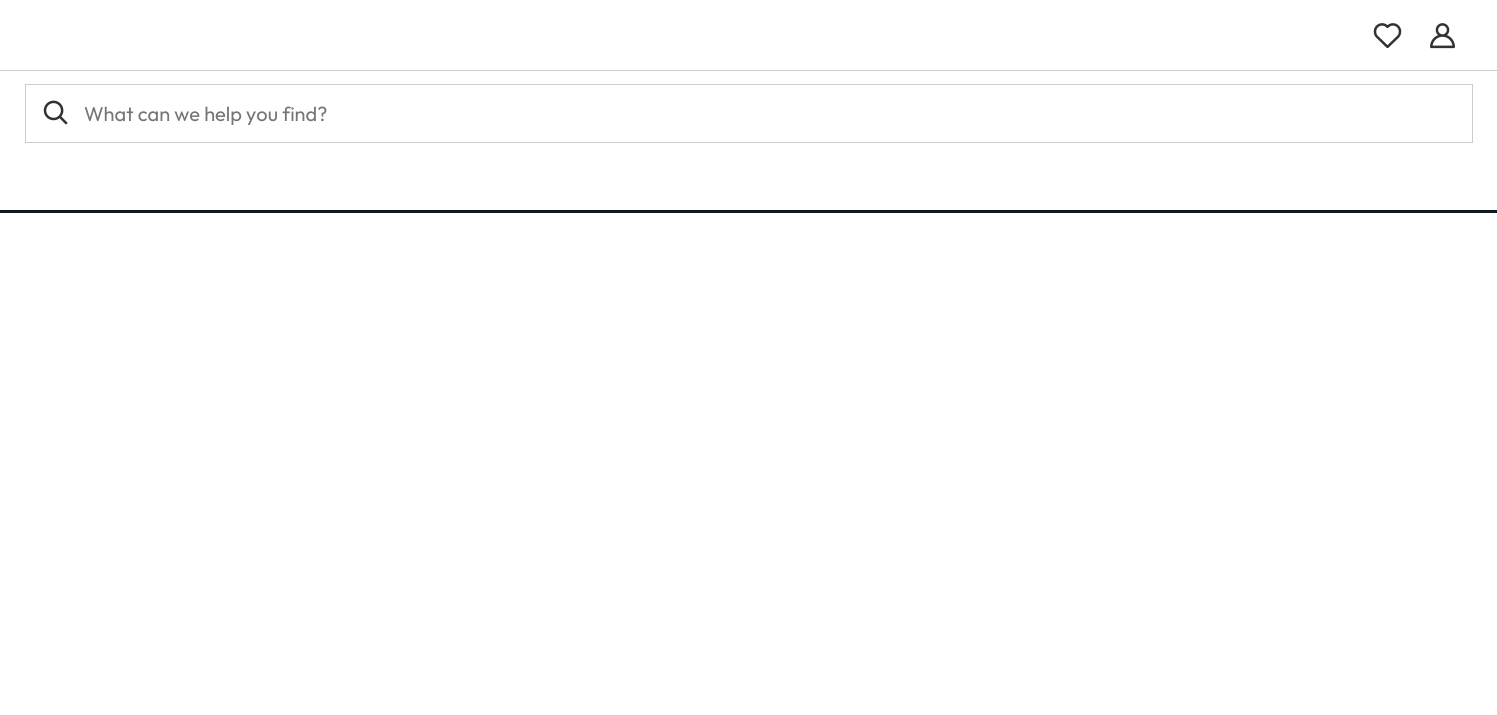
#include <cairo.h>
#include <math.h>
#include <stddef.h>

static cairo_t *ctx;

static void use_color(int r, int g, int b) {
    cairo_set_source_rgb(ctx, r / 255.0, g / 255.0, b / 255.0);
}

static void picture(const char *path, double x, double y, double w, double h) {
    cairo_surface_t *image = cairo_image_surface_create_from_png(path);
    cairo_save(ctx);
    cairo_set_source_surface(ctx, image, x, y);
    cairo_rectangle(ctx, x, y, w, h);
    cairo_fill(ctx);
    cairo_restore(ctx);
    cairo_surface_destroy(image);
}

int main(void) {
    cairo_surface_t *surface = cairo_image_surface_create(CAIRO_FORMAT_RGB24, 1497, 715);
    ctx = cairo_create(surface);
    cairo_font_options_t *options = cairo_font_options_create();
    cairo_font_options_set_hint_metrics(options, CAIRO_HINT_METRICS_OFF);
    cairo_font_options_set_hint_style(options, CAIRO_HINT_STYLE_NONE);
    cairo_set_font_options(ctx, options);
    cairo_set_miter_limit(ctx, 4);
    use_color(255, 255, 255);
    cairo_paint(ctx);
    use_color(204, 204, 204);
    cairo_rectangle(ctx, 0, 70, 1497, 1);
    cairo_fill(ctx);
    picture("img1.png", 1373, 23, 29, 26);
    picture("img2.png", 1430, 23, 25, 26);
    cairo_rectangle(ctx, 25.5, 84.5, 1447, 58);
    cairo_set_line_width(ctx, 1);
    cairo_stroke(ctx);
    picture("img3.png", 43, 100, 25, 25);
    cairo_select_font_face(ctx, "Outfit", CAIRO_FONT_SLANT_NORMAL, CAIRO_FONT_WEIGHT_NORMAL);
    cairo_set_font_size(ctx, 20);
    use_color(117, 117, 117);
    cairo_move_to(ctx, 84, 121);
    cairo_show_text(ctx, "What can we help you find?");
    use_color(16, 24, 32);
    cairo_rectangle(ctx, 0, 210, 1497, 3);
    cairo_fill(ctx);
    cairo_surface_write_to_png(surface, "result.png");
    cairo_font_options_destroy(options);
    cairo_destroy(ctx);
    cairo_surface_destroy(surface);
    return 0;
}
